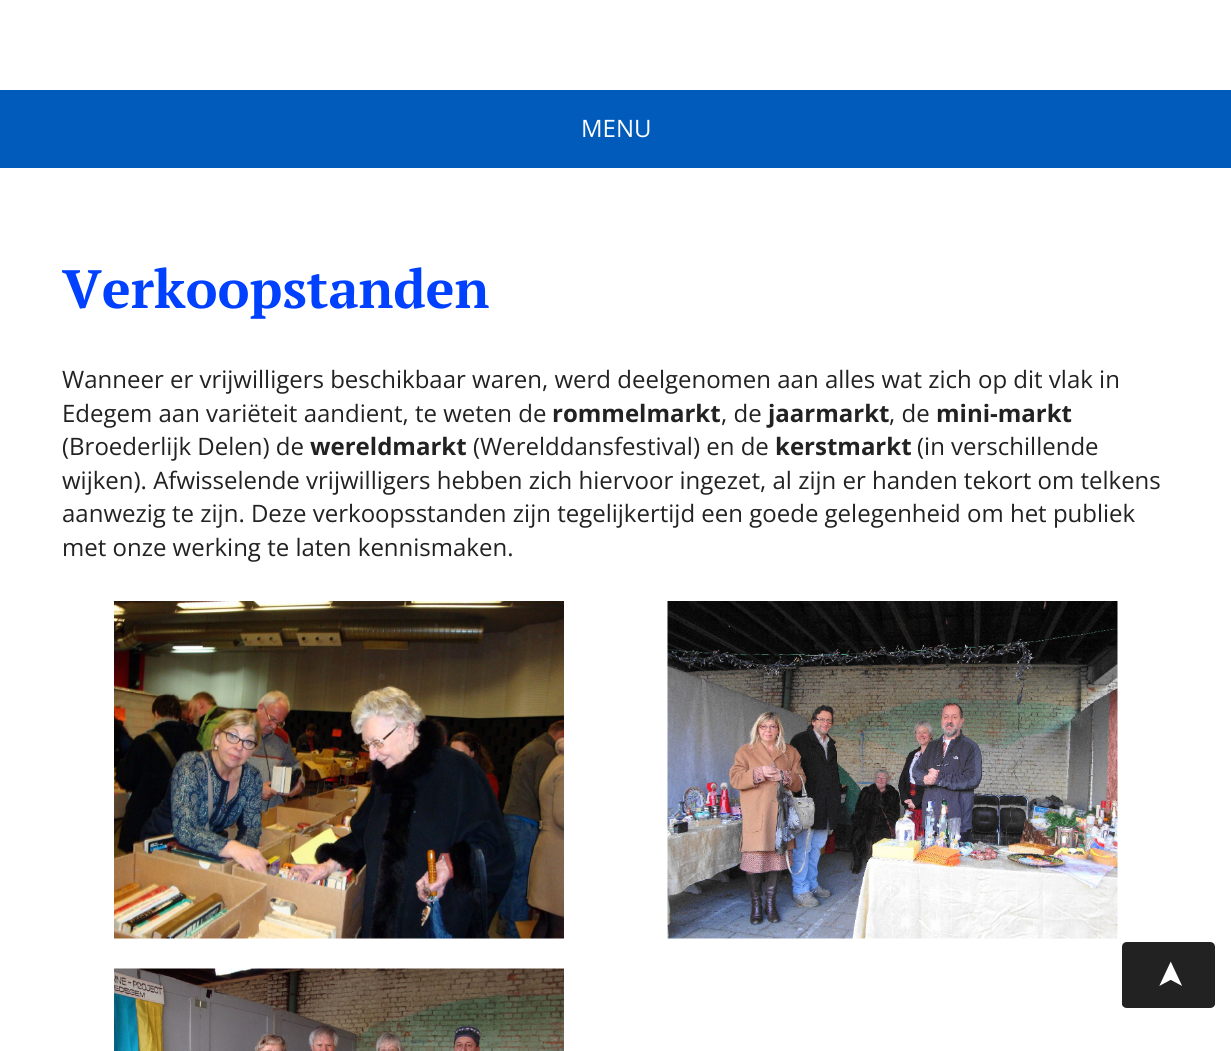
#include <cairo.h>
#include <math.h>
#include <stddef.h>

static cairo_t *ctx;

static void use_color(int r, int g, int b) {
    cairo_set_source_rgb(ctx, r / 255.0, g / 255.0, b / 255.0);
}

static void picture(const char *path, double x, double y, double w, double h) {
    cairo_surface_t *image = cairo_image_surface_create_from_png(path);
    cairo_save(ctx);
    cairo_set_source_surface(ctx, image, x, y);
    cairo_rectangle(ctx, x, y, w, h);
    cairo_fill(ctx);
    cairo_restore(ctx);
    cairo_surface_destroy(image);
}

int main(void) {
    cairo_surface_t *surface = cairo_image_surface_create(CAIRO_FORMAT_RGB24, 1231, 1051);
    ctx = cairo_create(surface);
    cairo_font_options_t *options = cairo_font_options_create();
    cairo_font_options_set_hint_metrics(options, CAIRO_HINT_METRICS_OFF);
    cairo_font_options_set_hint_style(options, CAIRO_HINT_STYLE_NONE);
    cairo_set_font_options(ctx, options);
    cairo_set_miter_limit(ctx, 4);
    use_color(255, 255, 255);
    cairo_paint(ctx);
    use_color(0, 91, 187);
    cairo_rectangle(ctx, 0, 90, 1231, 78);
    cairo_fill(ctx);
    cairo_select_font_face(ctx, "Open Sans", CAIRO_FONT_SLANT_NORMAL, CAIRO_FONT_WEIGHT_NORMAL);
    cairo_set_font_size(ctx, 24);
    use_color(255, 255, 255);
    cairo_move_to(ctx, 581, 137);
    cairo_show_text(ctx, "MENU");
    cairo_select_font_face(ctx, "PT Serif", CAIRO_FONT_SLANT_NORMAL, CAIRO_FONT_WEIGHT_BOLD);
    cairo_set_font_size(ctx, 54);
    use_color(0, 64, 255);
    cairo_move_to(ctx, 62, 308);
    cairo_show_text(ctx, "Verkoopstanden");
    cairo_select_font_face(ctx, "Open Sans", CAIRO_FONT_SLANT_NORMAL, CAIRO_FONT_WEIGHT_NORMAL);
    cairo_set_font_size(ctx, 24);
    use_color(34, 34, 34);
    cairo_move_to(ctx, 62, 388);
    cairo_show_text(ctx, "Wanneer er vrijwilligers beschikbaar waren, werd deelgenomen aan alles wat zich op dit vlak in");
    cairo_move_to(ctx, 62, 422);
    cairo_show_text(ctx, "Edegem aan variëteit aandient, te weten de");
    cairo_select_font_face(ctx, "Open Sans", CAIRO_FONT_SLANT_NORMAL, CAIRO_FONT_WEIGHT_BOLD);
    cairo_move_to(ctx, 552, 422);
    cairo_show_text(ctx, "rommelmarkt");
    cairo_select_font_face(ctx, "Open Sans", CAIRO_FONT_SLANT_NORMAL, CAIRO_FONT_WEIGHT_NORMAL);
    cairo_move_to(ctx, 721, 422);
    cairo_show_text(ctx, ", de");
    cairo_select_font_face(ctx, "Open Sans", CAIRO_FONT_SLANT_NORMAL, CAIRO_FONT_WEIGHT_BOLD);
    cairo_move_to(ctx, 768, 422);
    cairo_show_text(ctx, "jaarmarkt");
    cairo_select_font_face(ctx, "Open Sans", CAIRO_FONT_SLANT_NORMAL, CAIRO_FONT_WEIGHT_NORMAL);
    cairo_move_to(ctx, 889, 422);
    cairo_show_text(ctx, ", de");
    cairo_select_font_face(ctx, "Open Sans", CAIRO_FONT_SLANT_NORMAL, CAIRO_FONT_WEIGHT_BOLD);
    cairo_move_to(ctx, 936, 422);
    cairo_show_text(ctx, "mini-markt");
    cairo_select_font_face(ctx, "Open Sans", CAIRO_FONT_SLANT_NORMAL, CAIRO_FONT_WEIGHT_NORMAL);
    cairo_move_to(ctx, 62, 455);
    cairo_show_text(ctx, "(Broederlijk Delen) de");
    cairo_select_font_face(ctx, "Open Sans", CAIRO_FONT_SLANT_NORMAL, CAIRO_FONT_WEIGHT_BOLD);
    cairo_move_to(ctx, 310, 455);
    cairo_show_text(ctx, "wereldmarkt");
    cairo_select_font_face(ctx, "Open Sans", CAIRO_FONT_SLANT_NORMAL, CAIRO_FONT_WEIGHT_NORMAL);
    cairo_move_to(ctx, 473, 455);
    cairo_show_text(ctx, "(Werelddansfestival) en de");
    cairo_select_font_face(ctx, "Open Sans", CAIRO_FONT_SLANT_NORMAL, CAIRO_FONT_WEIGHT_BOLD);
    cairo_move_to(ctx, 775, 455);
    cairo_show_text(ctx, "kerstmarkt");
    cairo_select_font_face(ctx, "Open Sans", CAIRO_FONT_SLANT_NORMAL, CAIRO_FONT_WEIGHT_NORMAL);
    cairo_move_to(ctx, 917, 455);
    cairo_show_text(ctx, "(in verschillende");
    cairo_move_to(ctx, 62, 489);
    cairo_show_text(ctx, "wijken). Afwisselende vrijwilligers hebben zich hiervoor ingezet, al zijn er handen tekort om telkens");
    cairo_move_to(ctx, 62, 522);
    cairo_show_text(ctx, "aanwezig te zijn. Deze verkoopsstanden zijn tegelijkertijd een goede gelegenheid om het publiek");
    cairo_move_to(ctx, 62, 556);
    cairo_show_text(ctx, "met onze werking te laten kennismaken.");
    picture("img1.png", 114, 601, 450, 338);
    picture("img2.png", 667, 601, 451, 338);
    picture("img3.png", 114, 968, 450, 83);
    cairo_new_path(ctx);
    cairo_move_to(ctx, 1122, 1004);
    cairo_line_to(ctx, 1122, 947);
    cairo_curve_to(ctx, 1122, 944, 1124, 942, 1127, 942);
    cairo_line_to(ctx, 1210, 942);
    cairo_curve_to(ctx, 1213, 942, 1215, 944, 1215, 947);
    cairo_line_to(ctx, 1215, 1004);
    cairo_curve_to(ctx, 1215, 1006, 1213, 1008, 1210, 1008);
    cairo_line_to(ctx, 1127, 1008);
    cairo_curve_to(ctx, 1124, 1008, 1122, 1006, 1122, 1004);
    cairo_close_path(ctx);
    cairo_fill(ctx);
    cairo_select_font_face(ctx, "DejaVu Sans", CAIRO_FONT_SLANT_NORMAL, CAIRO_FONT_WEIGHT_NORMAL);
    cairo_set_font_size(ctx, 36);
    use_color(255, 255, 255);
    cairo_save(ctx);
    cairo_translate(ctx, 1182, 990);
    cairo_rotate(ctx, -90 * M_PI / 180);
    cairo_move_to(ctx, 0, 0);
    cairo_show_text(ctx, "➤");
    cairo_restore(ctx);
    cairo_surface_write_to_png(surface, "result.png");
    cairo_font_options_destroy(options);
    cairo_destroy(ctx);
    cairo_surface_destroy(surface);
    return 0;
}
